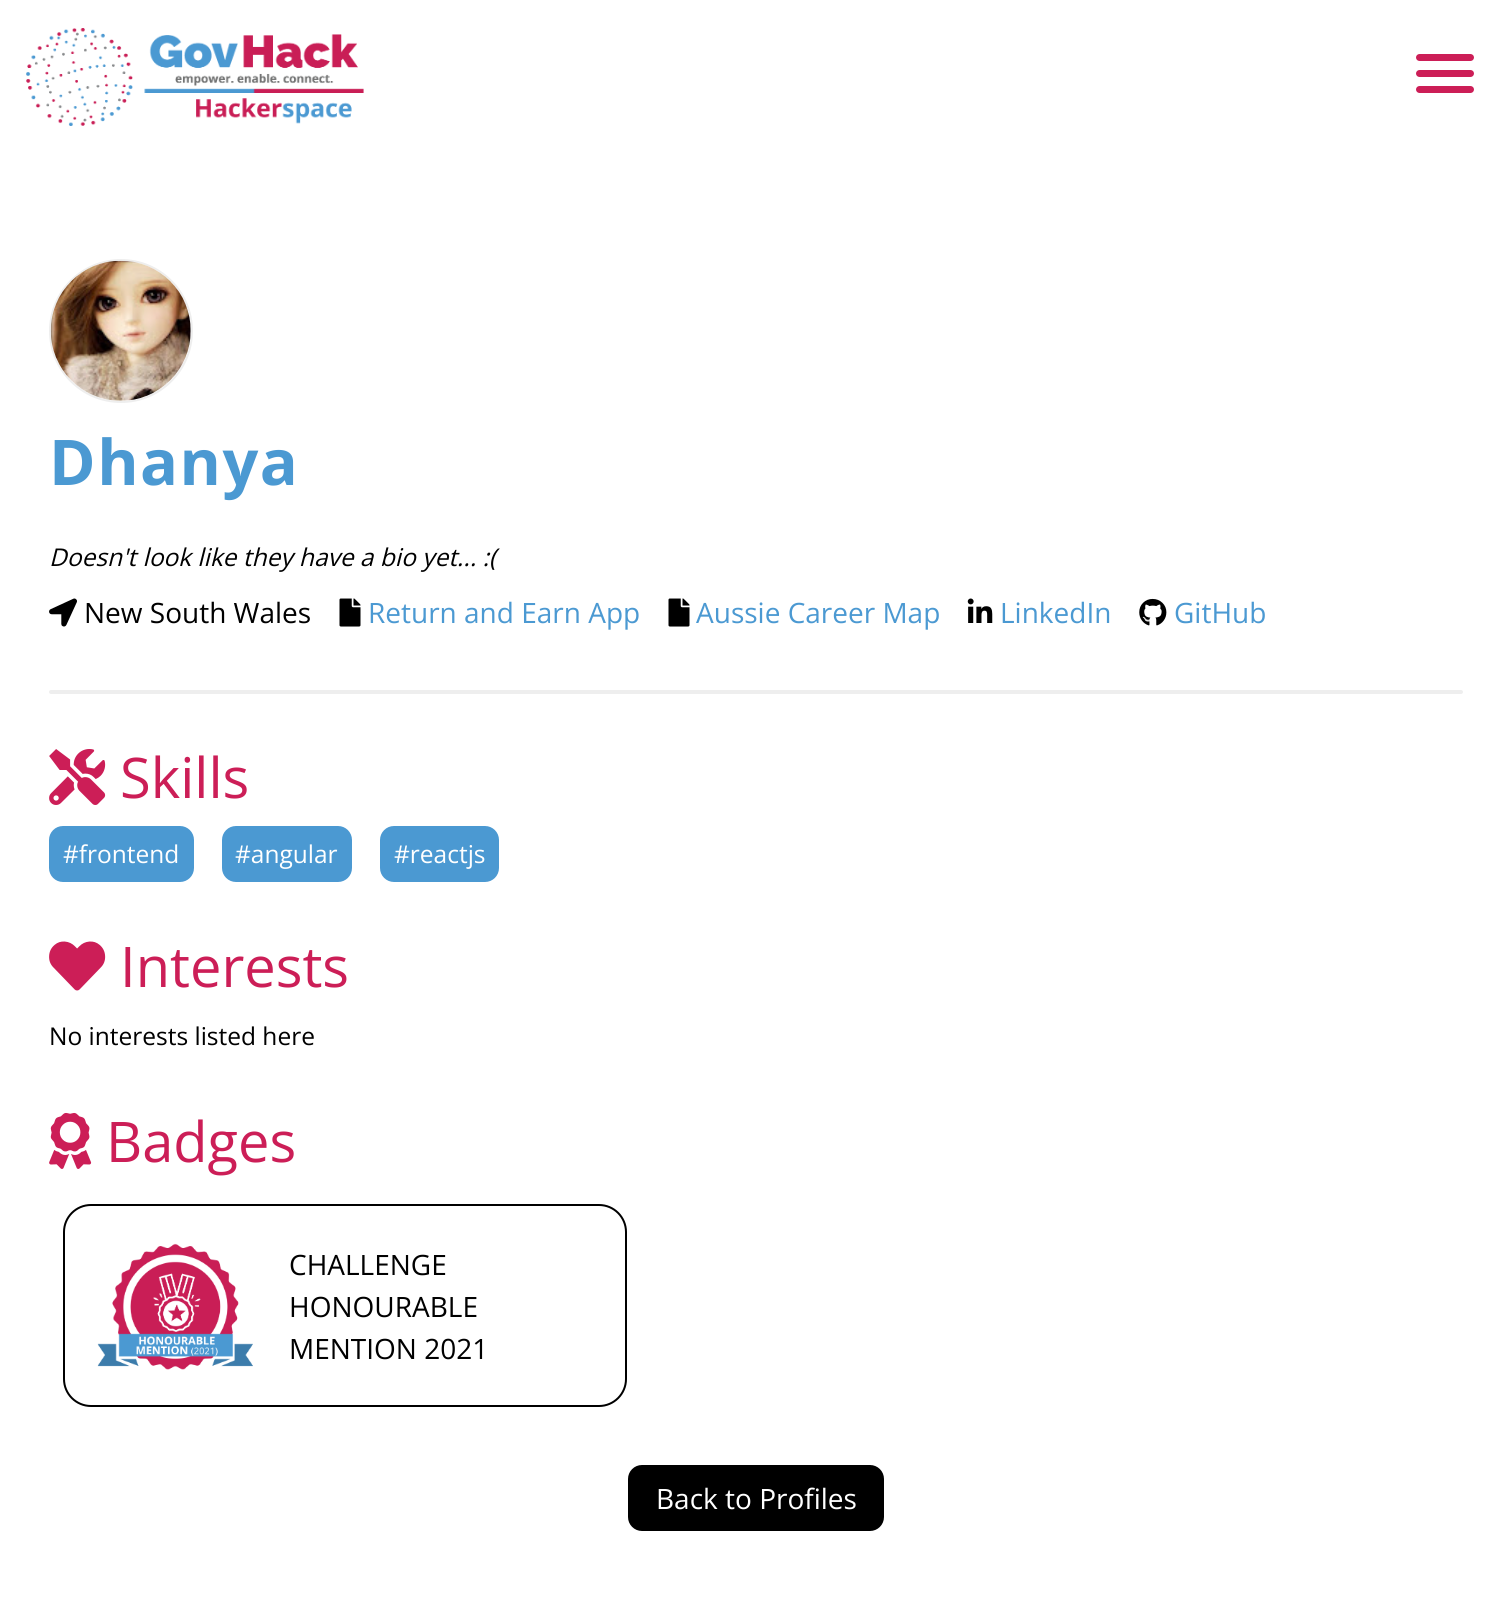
#include <cairo.h>
#include <math.h>
#include <stddef.h>

static cairo_t *ctx;

static void use_color(int r, int g, int b) {
    cairo_set_source_rgb(ctx, r / 255.0, g / 255.0, b / 255.0);
}

static void spaced_text(double x, double y, const char *s, double letter, double word) {
    cairo_move_to(ctx, x, y);
    while (*s) {
        char ch[5] = {0};
        int n = 0;
        do ch[n++] = *s++; while ((*s & 0xC0) == 0x80);
        cairo_show_text(ctx, ch);
        cairo_rel_move_to(ctx, letter + word * (*ch == ' '), 0);
    }
}

static void round_rect(double x, double y, double w, double h, double r) {
    cairo_new_sub_path(ctx);
    cairo_arc(ctx, x + w - r, y + h - r, r, 0, M_PI / 2);
    cairo_arc(ctx, x + r, y + h - r, r, M_PI / 2, M_PI);
    cairo_arc(ctx, x + r, y + r, r, M_PI, 1.5 * M_PI);
    cairo_arc(ctx, x + w - r, y + r, r, 1.5 * M_PI, 2 * M_PI);
    cairo_close_path(ctx);
}

static void picture(const char *path, double x, double y, double w, double h) {
    cairo_surface_t *image = cairo_image_surface_create_from_png(path);
    cairo_save(ctx);
    cairo_set_source_surface(ctx, image, x, y);
    cairo_rectangle(ctx, x, y, w, h);
    cairo_fill(ctx);
    cairo_restore(ctx);
    cairo_surface_destroy(image);
}

int main(void) {
    cairo_surface_t *surface = cairo_image_surface_create(CAIRO_FORMAT_RGB24, 1512, 1619);
    ctx = cairo_create(surface);
    cairo_font_options_t *options = cairo_font_options_create();
    cairo_font_options_set_hint_metrics(options, CAIRO_HINT_METRICS_OFF);
    cairo_font_options_set_hint_style(options, CAIRO_HINT_STYLE_NONE);
    cairo_set_font_options(ctx, options);
    cairo_set_miter_limit(ctx, 4);
    use_color(255, 255, 255);
    cairo_paint(ctx);
    picture("img1.png", 26, 28, 338, 98);
    use_color(204, 30, 87);
    round_rect(1416, 54, 58, 7, 3.5);
    cairo_fill(ctx);
    round_rect(1416, 70, 58, 7, 3.5);
    cairo_fill(ctx);
    round_rect(1416, 86, 58, 7, 3.5);
    cairo_fill(ctx);
    cairo_arc(ctx, 121, 331, 71, 0, 2 * M_PI);
    use_color(238, 238, 238);
    cairo_stroke(ctx);
    picture("img2.png", 50, 260, 141, 141);
    cairo_select_font_face(ctx, "Open Sans", CAIRO_FONT_SLANT_NORMAL, CAIRO_FONT_WEIGHT_BOLD);
    cairo_set_font_size(ctx, 63);
    use_color(75, 153, 210);
    spaced_text(49, 485, "Dhanya", 1.5, 0);
    cairo_select_font_face(ctx, "Open Sans", CAIRO_FONT_SLANT_ITALIC, CAIRO_FONT_WEIGHT_NORMAL);
    cairo_set_font_size(ctx, 24.5);
    use_color(0, 0, 0);
    cairo_move_to(ctx, 49, 566);
    cairo_show_text(ctx, "Doesn't look like they have a bio yet... :(");
    picture("img3.png", 49, 598, 28, 29);
    cairo_select_font_face(ctx, "Open Sans", CAIRO_FONT_SLANT_NORMAL, CAIRO_FONT_WEIGHT_NORMAL);
    cairo_set_font_size(ctx, 28);
    cairo_move_to(ctx, 84, 623);
    cairo_show_text(ctx, "New South Wales");
    picture("img4.png", 339, 598, 22, 29);
    use_color(75, 153, 210);
    cairo_move_to(ctx, 368, 623);
    cairo_show_text(ctx, "Return and Earn App");
    picture("img4.png", 668, 598, 22, 29);
    cairo_move_to(ctx, 696, 623);
    cairo_show_text(ctx, "Aussie Career Map");
    picture("img5.png", 967, 598, 26, 25);
    cairo_move_to(ctx, 1000, 623);
    cairo_show_text(ctx, "LinkedIn");
    picture("img6.png", 1139, 598, 28, 28);
    cairo_move_to(ctx, 1174, 623);
    cairo_show_text(ctx, "GitHub");
    use_color(238, 238, 238);
    round_rect(49, 690, 1414, 4, 2);
    cairo_fill(ctx);
    picture("img7.png", 49, 749, 57, 56);
    cairo_set_font_size(ctx, 56);
    use_color(204, 30, 87);
    cairo_move_to(ctx, 120, 798);
    cairo_show_text(ctx, "Skills");
    use_color(75, 153, 210);
    round_rect(49, 826, 145, 56, 14);
    cairo_fill(ctx);
    cairo_set_font_size(ctx, 24.5);
    use_color(255, 255, 255);
    cairo_move_to(ctx, 63, 863);
    cairo_show_text(ctx, "#frontend");
    use_color(75, 153, 210);
    round_rect(222, 826, 130, 56, 14);
    cairo_fill(ctx);
    use_color(255, 255, 255);
    cairo_move_to(ctx, 235, 863);
    cairo_show_text(ctx, "#angular");
    use_color(75, 153, 210);
    round_rect(380, 826, 119, 56, 14);
    cairo_fill(ctx);
    use_color(255, 255, 255);
    cairo_move_to(ctx, 394, 863);
    cairo_show_text(ctx, "#reactjs");
    picture("img8.png", 49, 941, 57, 50);
    cairo_set_font_size(ctx, 56);
    use_color(204, 30, 87);
    cairo_move_to(ctx, 120, 987);
    cairo_show_text(ctx, "Interests");
    cairo_set_font_size(ctx, 24.5);
    use_color(0, 0, 0);
    cairo_move_to(ctx, 49, 1045);
    cairo_show_text(ctx, "No interests listed here");
    picture("img9.png", 49, 1112, 43, 57);
    cairo_set_font_size(ctx, 56);
    use_color(204, 30, 87);
    cairo_move_to(ctx, 106, 1162);
    cairo_show_text(ctx, "Badges");
    round_rect(64, 1205, 562, 201, 27);
    use_color(0, 0, 0);
    cairo_stroke(ctx);
    picture("img10.png", 97, 1243, 156, 127);
    cairo_set_font_size(ctx, 28);
    cairo_move_to(ctx, 289, 1275);
    cairo_show_text(ctx, "CHALLENGE");
    cairo_move_to(ctx, 289, 1317);
    cairo_show_text(ctx, "HONOURABLE");
    cairo_move_to(ctx, 289, 1359);
    cairo_show_text(ctx, "MENTION 2021");
    round_rect(628, 1465, 256, 66, 14);
    cairo_fill(ctx);
    use_color(255, 255, 255);
    cairo_move_to(ctx, 656, 1509);
    cairo_show_text(ctx, "Back to Profiles");
    cairo_surface_write_to_png(surface, "result.png");
    cairo_font_options_destroy(options);
    cairo_destroy(ctx);
    cairo_surface_destroy(surface);
    return 0;
}
